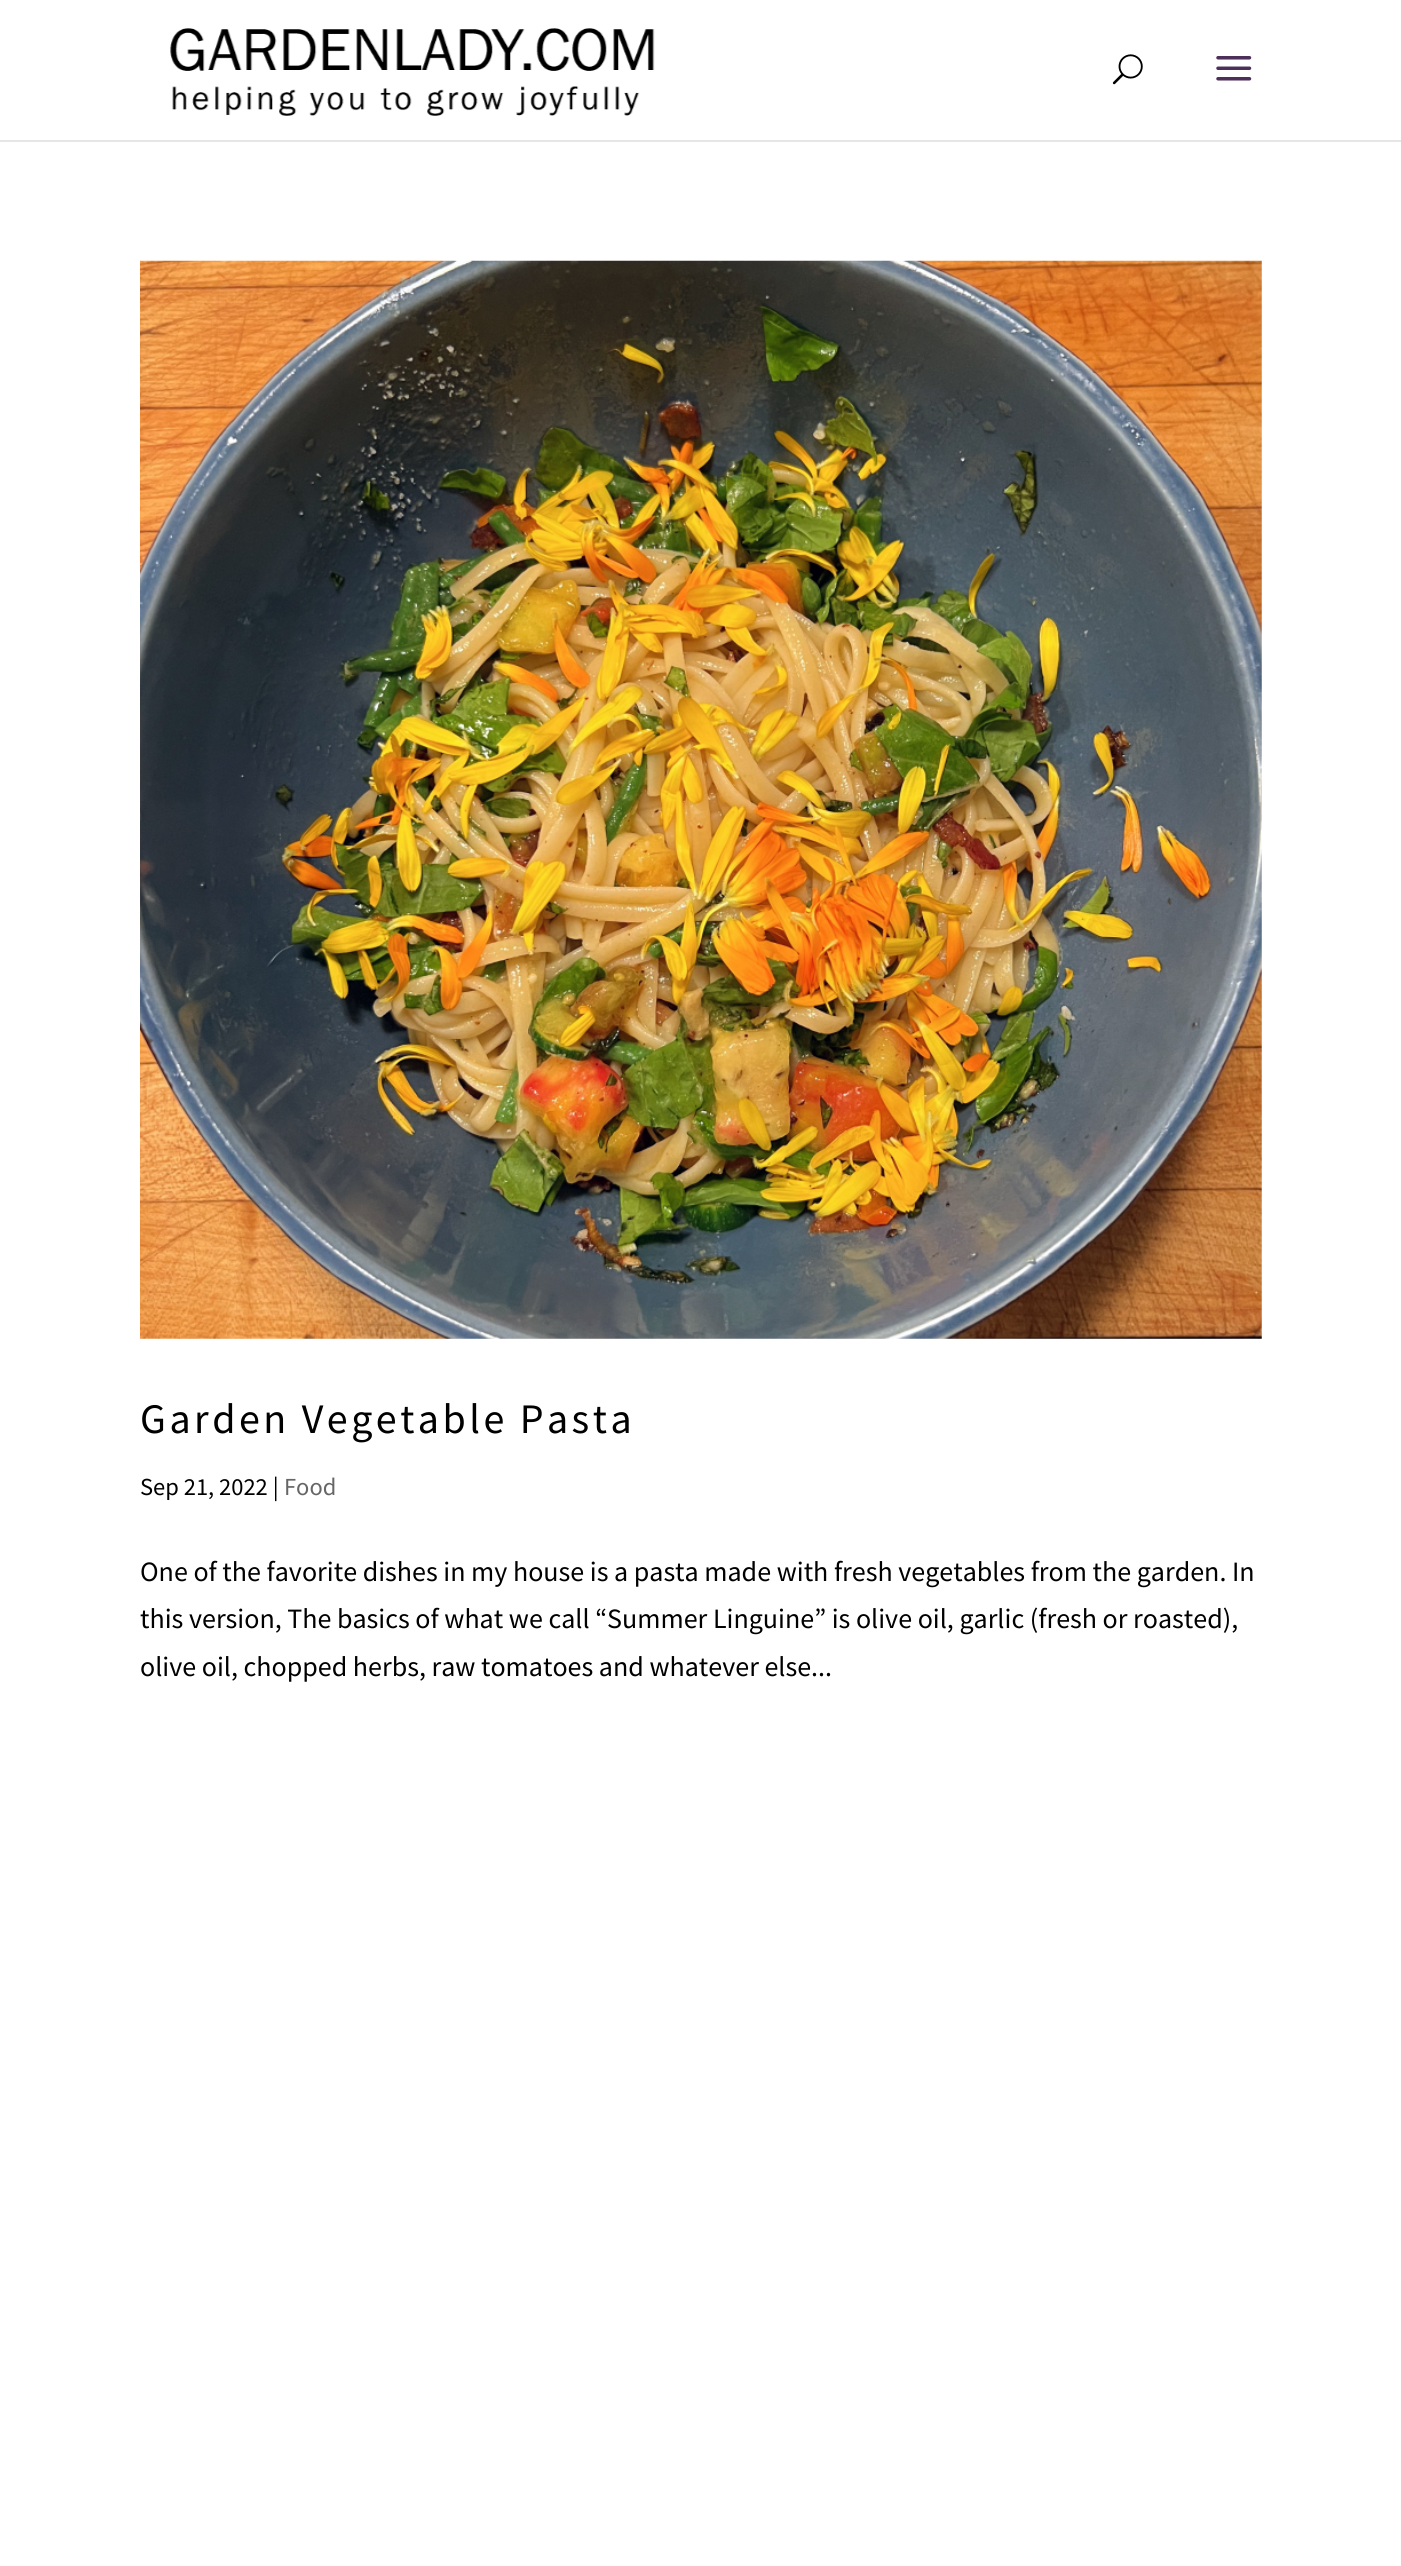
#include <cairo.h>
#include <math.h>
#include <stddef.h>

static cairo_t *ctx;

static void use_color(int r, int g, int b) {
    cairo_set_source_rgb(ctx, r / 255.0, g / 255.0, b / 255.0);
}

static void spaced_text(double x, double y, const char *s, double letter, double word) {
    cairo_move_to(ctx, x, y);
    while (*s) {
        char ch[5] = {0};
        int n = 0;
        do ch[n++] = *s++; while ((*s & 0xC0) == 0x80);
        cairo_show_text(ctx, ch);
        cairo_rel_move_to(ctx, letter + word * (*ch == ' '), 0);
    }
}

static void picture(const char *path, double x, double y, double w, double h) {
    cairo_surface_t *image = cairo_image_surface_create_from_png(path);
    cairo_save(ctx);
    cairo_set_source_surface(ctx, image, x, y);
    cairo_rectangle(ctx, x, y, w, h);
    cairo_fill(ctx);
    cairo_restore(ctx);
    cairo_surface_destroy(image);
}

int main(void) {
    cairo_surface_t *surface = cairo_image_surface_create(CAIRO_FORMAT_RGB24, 1401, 2566);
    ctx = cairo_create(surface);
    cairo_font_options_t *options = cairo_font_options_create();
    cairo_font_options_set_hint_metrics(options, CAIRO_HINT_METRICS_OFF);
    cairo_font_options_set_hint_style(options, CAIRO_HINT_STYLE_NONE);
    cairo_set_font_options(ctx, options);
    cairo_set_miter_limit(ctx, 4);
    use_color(255, 255, 255);
    cairo_paint(ctx);
    use_color(230, 230, 230);
    cairo_new_path(ctx);
    cairo_move_to(ctx, 0, 140);
    cairo_line_to(ctx, 0, 142);
    cairo_line_to(ctx, 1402, 142);
    cairo_line_to(ctx, 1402, 2);
    cairo_line_to(ctx, 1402, 140);
    cairo_close_path(ctx);
    cairo_fill(ctx);
    picture("img1.png", 170, 28, 485, 88);
    picture("img2.png", 1112, 54, 31, 31);
    picture("img3.png", 1216, 56, 36, 25);
    picture("img4.png", 140, 260, 1122, 1079);
    cairo_select_font_face(ctx, "Source Sans Pro", CAIRO_FONT_SLANT_NORMAL, CAIRO_FONT_WEIGHT_NORMAL);
    cairo_set_font_size(ctx, 42);
    use_color(0, 0, 0);
    spaced_text(140, 1433, "Garden Vegetable Pasta", 3.5, 0);
    cairo_set_font_size(ctx, 24.5);
    cairo_move_to(ctx, 140, 1495);
    cairo_show_text(ctx, "Sep 21, 2022 |");
    use_color(102, 102, 102);
    cairo_move_to(ctx, 284, 1495);
    cairo_show_text(ctx, "Food");
    cairo_set_font_size(ctx, 28);
    use_color(0, 0, 0);
    cairo_move_to(ctx, 140, 1581);
    cairo_show_text(ctx, "One of the favorite dishes in my house is a pasta made with fresh vegetables from the garden. In");
    cairo_move_to(ctx, 140, 1628);
    cairo_show_text(ctx, "this version, The basics of what we call “Summer Linguine” is olive oil, garlic (fresh or roasted),");
    cairo_move_to(ctx, 140, 1676);
    cairo_show_text(ctx, "olive oil, chopped herbs, raw tomatoes and whatever else...");
    cairo_surface_write_to_png(surface, "result.png");
    cairo_font_options_destroy(options);
    cairo_destroy(ctx);
    cairo_surface_destroy(surface);
    return 0;
}
